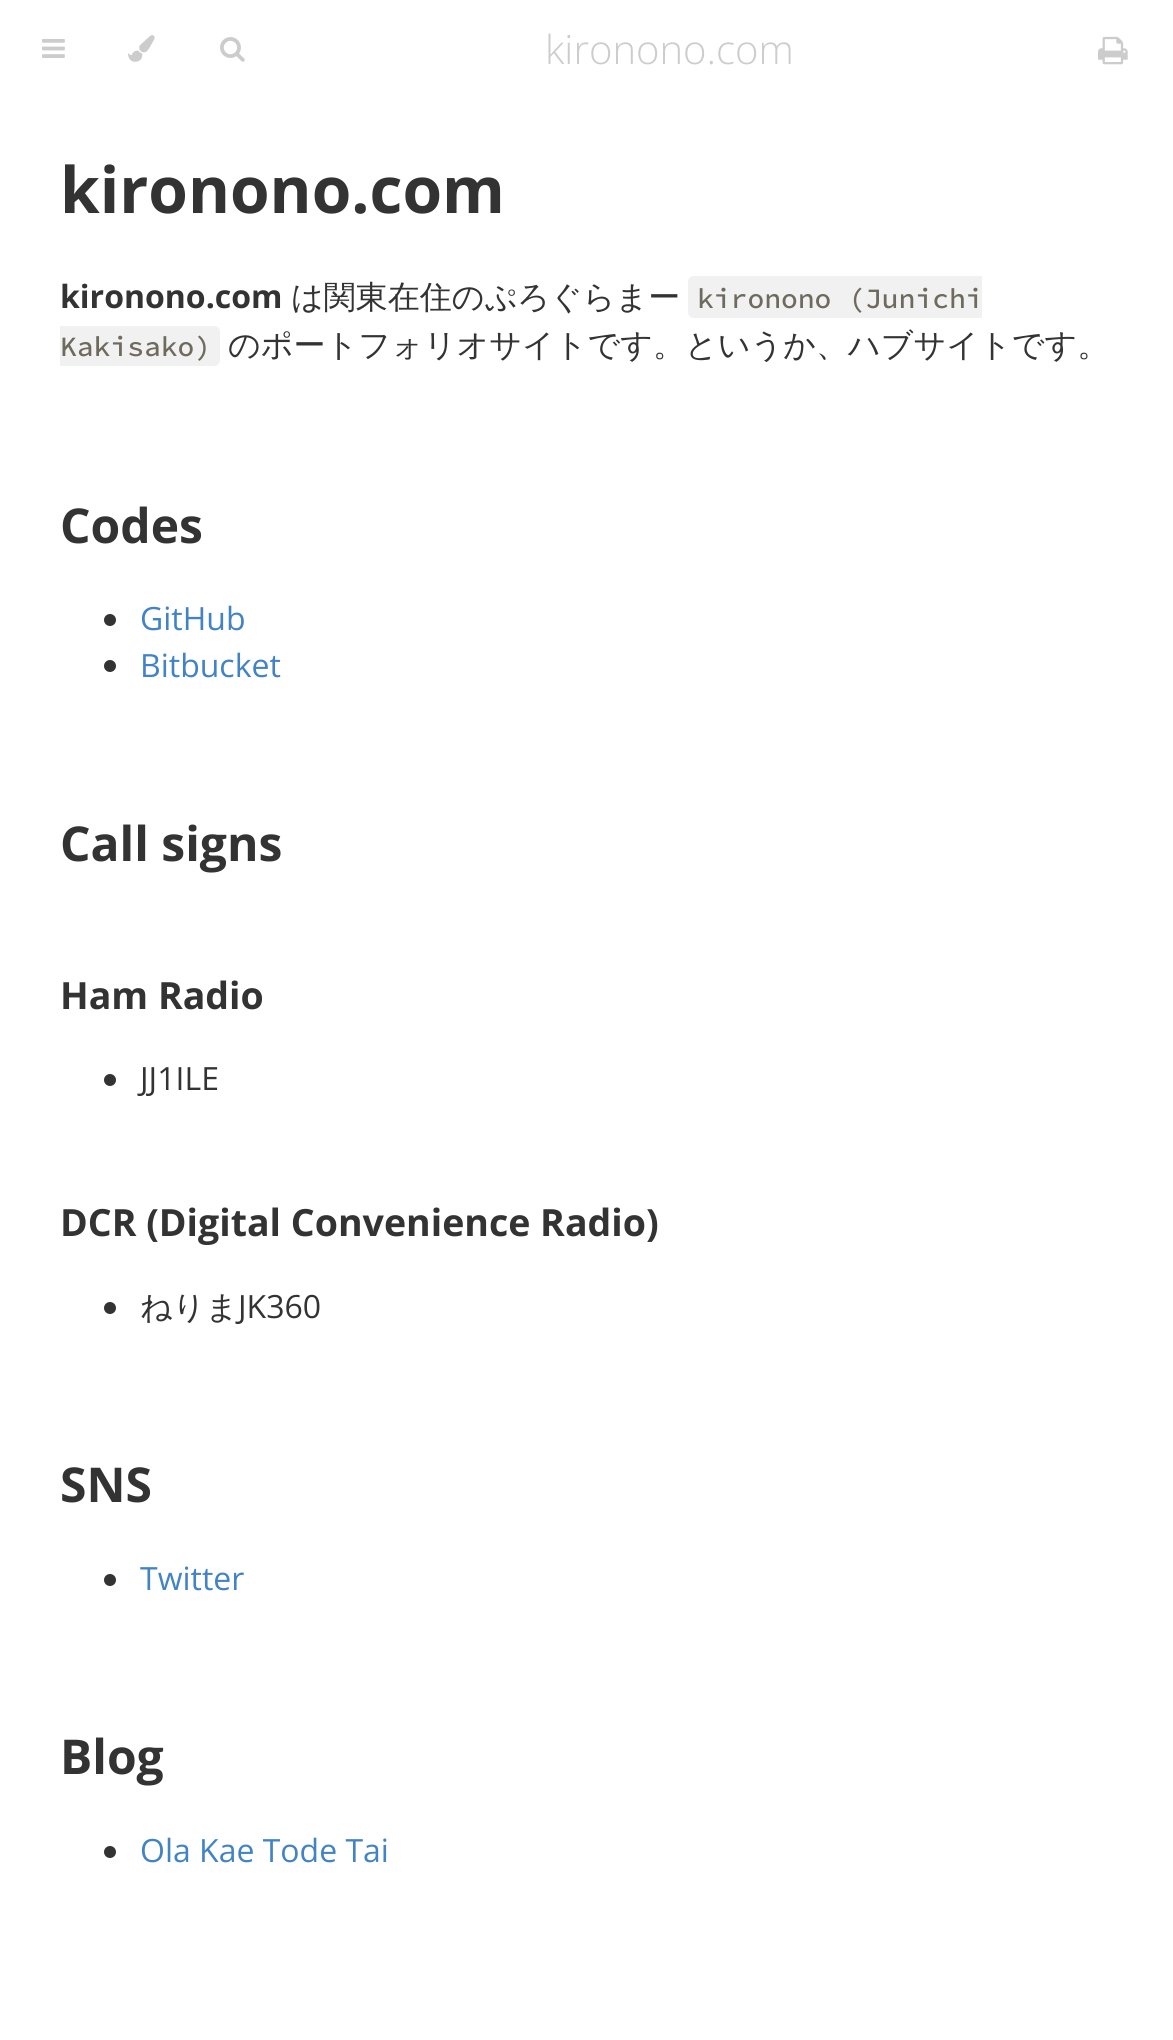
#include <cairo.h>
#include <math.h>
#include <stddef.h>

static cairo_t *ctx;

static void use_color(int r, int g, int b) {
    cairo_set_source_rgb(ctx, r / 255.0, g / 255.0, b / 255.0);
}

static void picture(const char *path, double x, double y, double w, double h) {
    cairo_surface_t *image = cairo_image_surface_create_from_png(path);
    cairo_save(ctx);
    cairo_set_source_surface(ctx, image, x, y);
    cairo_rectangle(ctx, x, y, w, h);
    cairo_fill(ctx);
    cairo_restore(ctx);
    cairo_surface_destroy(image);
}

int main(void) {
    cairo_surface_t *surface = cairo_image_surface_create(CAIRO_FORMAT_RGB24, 1173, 2040);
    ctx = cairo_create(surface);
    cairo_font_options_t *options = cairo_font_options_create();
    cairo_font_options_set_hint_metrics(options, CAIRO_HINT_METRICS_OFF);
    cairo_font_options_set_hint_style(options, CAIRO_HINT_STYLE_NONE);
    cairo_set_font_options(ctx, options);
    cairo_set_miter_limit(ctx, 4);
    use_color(255, 255, 255);
    cairo_paint(ctx);
    picture("img1.png", 42, 39, 23, 19);
    picture("img2.png", 128, 35, 27, 27);
    picture("img3.png", 220, 37, 25, 25);
    cairo_select_font_face(ctx, "Open Sans Light", CAIRO_FONT_SLANT_NORMAL, CAIRO_FONT_WEIGHT_NORMAL);
    cairo_set_font_size(ctx, 40);
    use_color(204, 204, 204);
    cairo_move_to(ctx, 545, 64);
    cairo_show_text(ctx, "kironono.com");
    picture("img4.png", 1098, 36, 30, 29);
    cairo_select_font_face(ctx, "Open Sans", CAIRO_FONT_SLANT_NORMAL, CAIRO_FONT_WEIGHT_BOLD);
    cairo_set_font_size(ctx, 64);
    use_color(51, 51, 51);
    cairo_move_to(ctx, 60, 213);
    cairo_show_text(ctx, "kironono.com");
    cairo_set_font_size(ctx, 32);
    cairo_move_to(ctx, 60, 308);
    cairo_show_text(ctx, "kironono.com");
    cairo_select_font_face(ctx, "WenQuanYi Zen Hei Medium", CAIRO_FONT_SLANT_NORMAL, CAIRO_FONT_WEIGHT_NORMAL);
    cairo_move_to(ctx, 291, 308);
    cairo_show_text(ctx, "は関東在住のぷろぐらまー");
    use_color(241, 241, 241);
    cairo_new_path(ctx);
    cairo_move_to(ctx, 694, 276);
    cairo_line_to(ctx, 982, 276);
    cairo_line_to(ctx, 982, 318);
    cairo_line_to(ctx, 694, 318);
    cairo_curve_to(ctx, 690.5, 318, 688, 315.5, 688, 312);
    cairo_line_to(ctx, 688, 282);
    cairo_curve_to(ctx, 688, 278.5, 690.5, 276, 694, 276);
    cairo_close_path(ctx);
    cairo_fill(ctx);
    cairo_select_font_face(ctx, "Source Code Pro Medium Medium", CAIRO_FONT_SLANT_NORMAL, CAIRO_FONT_WEIGHT_NORMAL);
    cairo_set_font_size(ctx, 28);
    use_color(110, 107, 94);
    cairo_move_to(ctx, 697, 308);
    cairo_show_text(ctx, "kironono (Junichi");
    use_color(241, 241, 241);
    cairo_new_path(ctx);
    cairo_move_to(ctx, 60, 326);
    cairo_line_to(ctx, 214, 326);
    cairo_curve_to(ctx, 217.5, 326, 220, 328.5, 220, 332);
    cairo_line_to(ctx, 220, 360);
    cairo_curve_to(ctx, 220, 363.5, 217.5, 366, 214, 366);
    cairo_line_to(ctx, 60, 366);
    cairo_close_path(ctx);
    cairo_fill(ctx);
    use_color(110, 107, 94);
    cairo_move_to(ctx, 60, 356);
    cairo_show_text(ctx, "Kakisako)");
    cairo_select_font_face(ctx, "WenQuanYi Zen Hei Medium", CAIRO_FONT_SLANT_NORMAL, CAIRO_FONT_WEIGHT_NORMAL);
    cairo_set_font_size(ctx, 32);
    use_color(51, 51, 51);
    cairo_move_to(ctx, 228, 356);
    cairo_show_text(ctx, "のポートフォリオサイトです。というか、ハブサイトです。");
    cairo_select_font_face(ctx, "Open Sans", CAIRO_FONT_SLANT_NORMAL, CAIRO_FONT_WEIGHT_BOLD);
    cairo_set_font_size(ctx, 48);
    cairo_move_to(ctx, 60, 543);
    cairo_show_text(ctx, "Codes");
    cairo_new_path(ctx);
    cairo_arc(ctx, 110, 620, 6, 0, 2 * M_PI);
    cairo_fill(ctx);
    cairo_select_font_face(ctx, "Open Sans", CAIRO_FONT_SLANT_NORMAL, CAIRO_FONT_WEIGHT_NORMAL);
    cairo_set_font_size(ctx, 32);
    use_color(65, 131, 196);
    cairo_move_to(ctx, 140, 630);
    cairo_show_text(ctx, "GitHub");
    use_color(51, 51, 51);
    cairo_new_path(ctx);
    cairo_arc(ctx, 110, 666, 6, 0, 2 * M_PI);
    cairo_fill(ctx);
    use_color(65, 131, 196);
    cairo_move_to(ctx, 140, 677);
    cairo_show_text(ctx, "Bitbucket");
    cairo_select_font_face(ctx, "Open Sans", CAIRO_FONT_SLANT_NORMAL, CAIRO_FONT_WEIGHT_BOLD);
    cairo_set_font_size(ctx, 48);
    use_color(51, 51, 51);
    cairo_move_to(ctx, 60, 861);
    cairo_show_text(ctx, "Call signs");
    cairo_set_font_size(ctx, 37.5);
    cairo_move_to(ctx, 60, 1009);
    cairo_show_text(ctx, "Ham Radio");
    cairo_new_path(ctx);
    cairo_arc(ctx, 110, 1080, 6, 0, 2 * M_PI);
    cairo_fill(ctx);
    cairo_select_font_face(ctx, "Open Sans", CAIRO_FONT_SLANT_NORMAL, CAIRO_FONT_WEIGHT_NORMAL);
    cairo_set_font_size(ctx, 32);
    cairo_move_to(ctx, 140, 1090);
    cairo_show_text(ctx, "JJ1ILE");
    cairo_select_font_face(ctx, "Open Sans", CAIRO_FONT_SLANT_NORMAL, CAIRO_FONT_WEIGHT_BOLD);
    cairo_set_font_size(ctx, 37.5);
    cairo_move_to(ctx, 60, 1236);
    cairo_show_text(ctx, "DCR (Digital Convenience Radio)");
    cairo_new_path(ctx);
    cairo_arc(ctx, 110, 1308, 6, 0, 2 * M_PI);
    cairo_fill(ctx);
    cairo_select_font_face(ctx, "WenQuanYi Zen Hei Medium", CAIRO_FONT_SLANT_NORMAL, CAIRO_FONT_WEIGHT_NORMAL);
    cairo_set_font_size(ctx, 32);
    cairo_move_to(ctx, 140, 1318);
    cairo_show_text(ctx, "ねりま");
    cairo_select_font_face(ctx, "Open Sans", CAIRO_FONT_SLANT_NORMAL, CAIRO_FONT_WEIGHT_NORMAL);
    cairo_move_to(ctx, 238, 1318);
    cairo_show_text(ctx, "JK360");
    cairo_select_font_face(ctx, "Open Sans", CAIRO_FONT_SLANT_NORMAL, CAIRO_FONT_WEIGHT_BOLD);
    cairo_set_font_size(ctx, 48);
    cairo_move_to(ctx, 60, 1502);
    cairo_show_text(ctx, "SNS");
    cairo_new_path(ctx);
    cairo_arc(ctx, 110, 1580, 6, 0, 2 * M_PI);
    cairo_fill(ctx);
    cairo_select_font_face(ctx, "Open Sans", CAIRO_FONT_SLANT_NORMAL, CAIRO_FONT_WEIGHT_NORMAL);
    cairo_set_font_size(ctx, 32);
    use_color(65, 131, 196);
    cairo_move_to(ctx, 140, 1590);
    cairo_show_text(ctx, "Twitter");
    cairo_select_font_face(ctx, "Open Sans", CAIRO_FONT_SLANT_NORMAL, CAIRO_FONT_WEIGHT_BOLD);
    cairo_set_font_size(ctx, 48);
    use_color(51, 51, 51);
    cairo_move_to(ctx, 60, 1774);
    cairo_show_text(ctx, "Blog");
    cairo_new_path(ctx);
    cairo_arc(ctx, 110, 1852, 6, 0, 2 * M_PI);
    cairo_fill(ctx);
    cairo_select_font_face(ctx, "Open Sans", CAIRO_FONT_SLANT_NORMAL, CAIRO_FONT_WEIGHT_NORMAL);
    cairo_set_font_size(ctx, 32);
    use_color(65, 131, 196);
    cairo_move_to(ctx, 140, 1862);
    cairo_show_text(ctx, "Ola Kae Tode Tai");
    cairo_surface_write_to_png(surface, "result.png");
    cairo_font_options_destroy(options);
    cairo_destroy(ctx);
    cairo_surface_destroy(surface);
    return 0;
}
